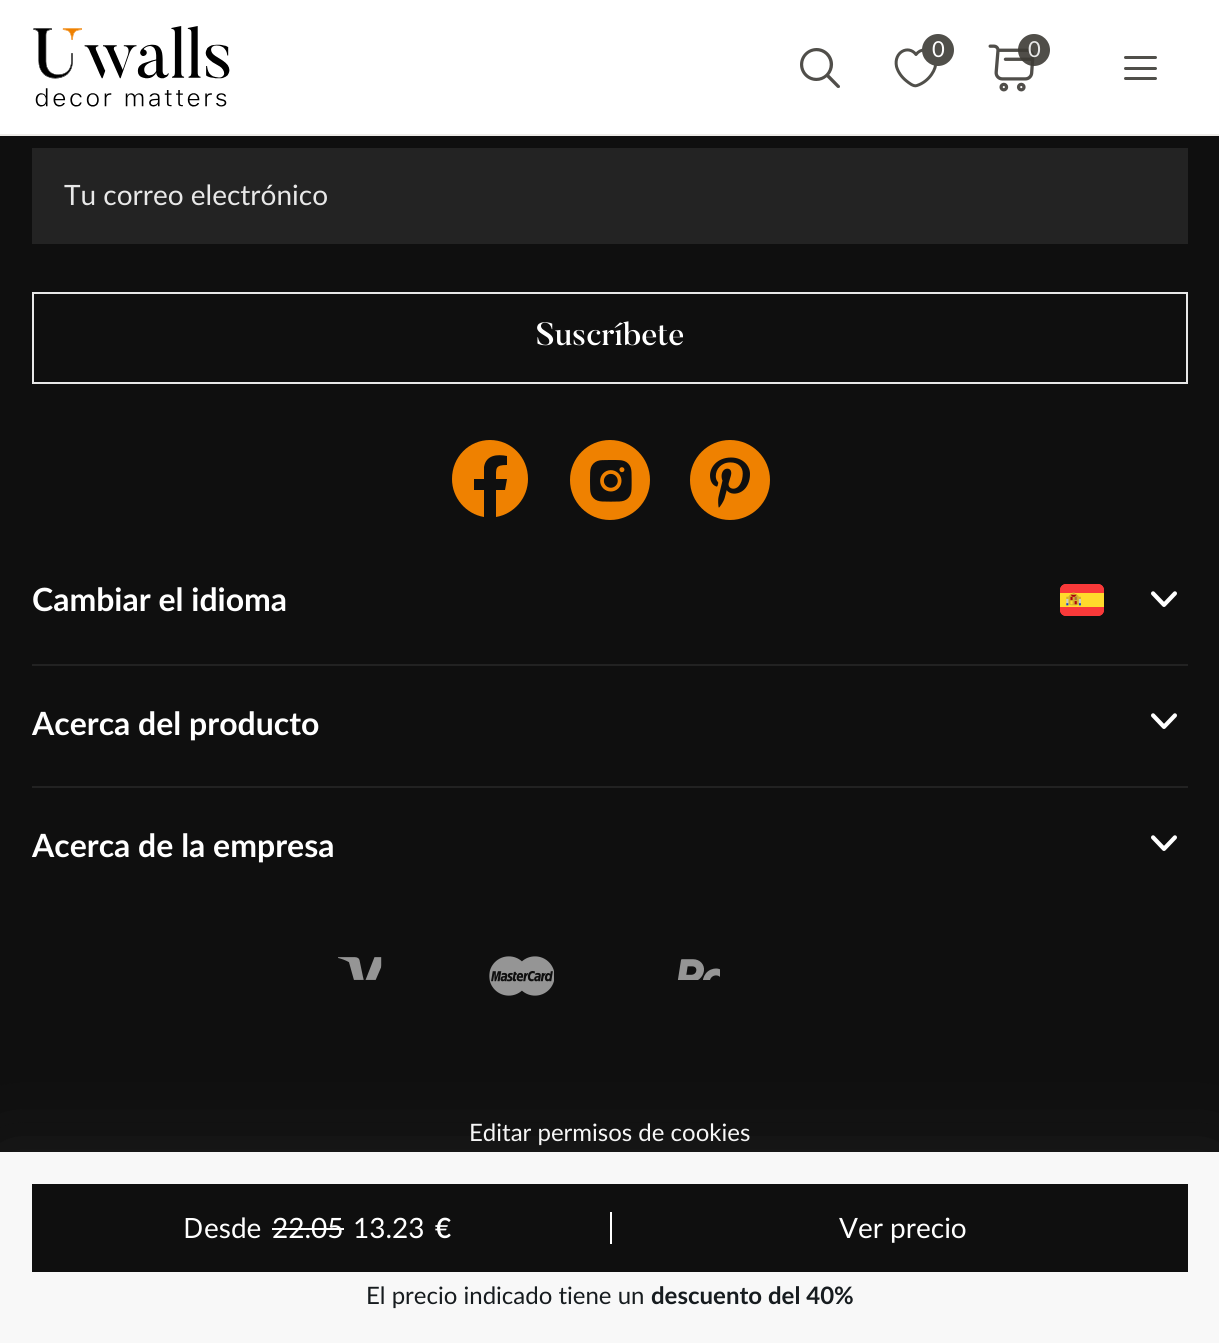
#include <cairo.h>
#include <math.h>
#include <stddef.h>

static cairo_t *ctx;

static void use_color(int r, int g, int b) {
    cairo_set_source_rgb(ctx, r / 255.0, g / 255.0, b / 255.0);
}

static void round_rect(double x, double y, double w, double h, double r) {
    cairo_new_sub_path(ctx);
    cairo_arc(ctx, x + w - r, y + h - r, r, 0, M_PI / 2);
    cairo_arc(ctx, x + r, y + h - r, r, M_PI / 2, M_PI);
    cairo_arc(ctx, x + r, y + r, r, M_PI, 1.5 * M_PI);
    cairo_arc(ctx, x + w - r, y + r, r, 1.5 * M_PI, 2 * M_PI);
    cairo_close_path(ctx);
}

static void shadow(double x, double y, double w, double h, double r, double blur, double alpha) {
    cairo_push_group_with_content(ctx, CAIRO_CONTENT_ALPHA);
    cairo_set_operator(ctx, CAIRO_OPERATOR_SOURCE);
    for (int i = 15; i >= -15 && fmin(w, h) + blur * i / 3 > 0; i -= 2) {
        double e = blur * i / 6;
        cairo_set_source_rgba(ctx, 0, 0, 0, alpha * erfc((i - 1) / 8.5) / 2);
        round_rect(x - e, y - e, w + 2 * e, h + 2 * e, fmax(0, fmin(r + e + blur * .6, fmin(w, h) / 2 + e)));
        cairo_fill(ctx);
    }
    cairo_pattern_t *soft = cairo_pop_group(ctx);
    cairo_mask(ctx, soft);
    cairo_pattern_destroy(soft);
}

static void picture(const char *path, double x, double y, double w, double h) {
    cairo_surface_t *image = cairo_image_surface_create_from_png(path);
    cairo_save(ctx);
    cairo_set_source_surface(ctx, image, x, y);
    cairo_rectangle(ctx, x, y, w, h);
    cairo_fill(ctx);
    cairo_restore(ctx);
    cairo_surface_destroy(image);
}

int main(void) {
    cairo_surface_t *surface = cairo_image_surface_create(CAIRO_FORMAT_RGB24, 1219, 1343);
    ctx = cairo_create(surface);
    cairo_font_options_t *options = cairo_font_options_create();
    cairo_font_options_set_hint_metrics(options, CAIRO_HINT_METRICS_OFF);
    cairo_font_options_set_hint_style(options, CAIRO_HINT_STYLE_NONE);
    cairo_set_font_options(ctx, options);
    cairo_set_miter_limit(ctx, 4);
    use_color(15, 15, 15);
    cairo_paint(ctx);
    use_color(255, 255, 255);
    cairo_rectangle(ctx, 0, 0, 1219, 134);
    cairo_fill(ctx);
    use_color(237, 235, 232);
    cairo_rectangle(ctx, 0, 134, 1219, 2);
    cairo_fill(ctx);
    picture("img1.png", 33, 26, 197, 81);
    picture("img2.png", 800, 48, 40, 40);
    cairo_new_path(ctx);
    cairo_move_to(ctx, 917, 85.5);
    cairo_curve_to(ctx, 913.5, 87, 908.5, 82.5, 906.5, 81);
    cairo_curve_to(ctx, 901.5, 77, 898, 72, 896.5, 66.5);
    cairo_curve_to(ctx, 893.5, 52, 908.5, 44.5, 916, 54.5);
    cairo_curve_to(ctx, 925, 42.5, 944.5, 56, 931.5, 74.5);
    cairo_curve_to(ctx, 928, 79.5, 923, 83.5, 917, 85.5);
    cairo_close_path(ctx);
    use_color(80, 79, 74);
    cairo_set_line_width(ctx, 3);
    cairo_set_line_cap(ctx, CAIRO_LINE_CAP_ROUND);
    cairo_set_line_join(ctx, CAIRO_LINE_JOIN_ROUND);
    cairo_stroke(ctx);
    cairo_arc(ctx, 938, 50, 16, 0, 2 * M_PI);
    cairo_fill(ctx);
    cairo_select_font_face(ctx, "Lato", CAIRO_FONT_SLANT_NORMAL, CAIRO_FONT_WEIGHT_NORMAL);
    cairo_set_font_size(ctx, 22);
    use_color(255, 255, 255);
    cairo_move_to(ctx, 932, 57);
    cairo_show_text(ctx, "0");
    picture("img3.png", 988, 44, 47, 48);
    cairo_set_source_rgba(ctx, 0.239, 0.231, 0.212, 0.9);
    cairo_arc(ctx, 1034, 50, 16, 0, 2 * M_PI);
    cairo_fill(ctx);
    use_color(232, 232, 232);
    cairo_move_to(ctx, 1028, 57);
    cairo_show_text(ctx, "0");
    use_color(80, 79, 74);
    round_rect(1124, 56, 33, 3, 1.5);
    cairo_fill(ctx);
    round_rect(1124, 67, 33, 3, 1.5);
    cairo_fill(ctx);
    round_rect(1124, 77, 33, 3, 1.5);
    cairo_fill(ctx);
    use_color(35, 35, 35);
    cairo_rectangle(ctx, 32, 148, 1156, 96);
    cairo_fill(ctx);
    cairo_set_font_size(ctx, 28);
    use_color(232, 232, 232);
    cairo_move_to(ctx, 64, 205);
    cairo_show_text(ctx, "Tu correo electrónico");
    cairo_rectangle(ctx, 33, 293, 1154, 90);
    cairo_set_line_width(ctx, 2);
    cairo_set_line_cap(ctx, CAIRO_LINE_CAP_BUTT);
    cairo_set_line_join(ctx, CAIRO_LINE_JOIN_MITER);
    cairo_stroke(ctx);
    cairo_select_font_face(ctx, "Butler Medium", CAIRO_FONT_SLANT_NORMAL, CAIRO_FONT_WEIGHT_NORMAL);
    cairo_set_font_size(ctx, 32);
    use_color(255, 255, 255);
    cairo_move_to(ctx, 536, 345);
    cairo_show_text(ctx, "Suscríbete");
    use_color(239, 129, 0);
    cairo_set_fill_rule(ctx, CAIRO_FILL_RULE_EVEN_ODD);
    cairo_new_path(ctx);
    cairo_move_to(ctx, 528, 479);
    cairo_curve_to(ctx, 528, 457, 511, 440, 490, 440);
    cairo_curve_to(ctx, 469, 440, 452, 457, 452, 479);
    cairo_curve_to(ctx, 452, 498, 466, 514, 484, 517);
    cairo_line_to(ctx, 484, 490);
    cairo_line_to(ctx, 474, 490);
    cairo_line_to(ctx, 474, 479);
    cairo_line_to(ctx, 484, 479);
    cairo_line_to(ctx, 484, 467);
    cairo_curve_to(ctx, 486, 455, 497, 454, 507, 456);
    cairo_line_to(ctx, 507, 465);
    cairo_curve_to(ctx, 495, 465, 496, 468, 496, 479);
    cairo_line_to(ctx, 507, 479);
    cairo_line_to(ctx, 505, 490);
    cairo_line_to(ctx, 496, 490);
    cairo_line_to(ctx, 496, 517);
    cairo_curve_to(ctx, 514, 514, 528, 498, 528, 479);
    cairo_close_path(ctx);
    cairo_fill(ctx);
    picture("img4.png", 570, 440, 80, 80);
    picture("img5.png", 690, 440, 80, 80);
    cairo_select_font_face(ctx, "Lato", CAIRO_FONT_SLANT_NORMAL, CAIRO_FONT_WEIGHT_BOLD);
    use_color(255, 255, 255);
    cairo_move_to(ctx, 32, 611);
    cairo_show_text(ctx, "Cambiar el idioma");
    picture("img6.png", 1060, 584, 44, 32);
    picture("img7.png", 1151, 591, 26, 16);
    use_color(34, 34, 34);
    cairo_rectangle(ctx, 32, 664, 1156, 2);
    cairo_fill(ctx);
    cairo_rectangle(ctx, 32, 786, 1156, 2);
    cairo_fill(ctx);
    use_color(255, 255, 255);
    cairo_move_to(ctx, 32, 735);
    cairo_show_text(ctx, "Acerca del producto");
    picture("img7.png", 1151, 713, 26, 16);
    cairo_move_to(ctx, 32, 857);
    cairo_show_text(ctx, "Acerca de la empresa");
    picture("img7.png", 1151, 835, 26, 16);
    picture("img8.png", 338, 956, 216, 40);
    picture("img9.png", 677, 959, 43, 21);
    cairo_select_font_face(ctx, "Lato", CAIRO_FONT_SLANT_NORMAL, CAIRO_FONT_WEIGHT_NORMAL);
    cairo_set_font_size(ctx, 24);
    cairo_move_to(ctx, 469, 1141);
    cairo_show_text(ctx, "Editar permisos de cookies");
    use_color(94, 94, 94);
    shadow(0, 1156, 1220, 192, 0, 40, 0.2);
    use_color(248, 248, 248);
    cairo_rectangle(ctx, 0, 1152, 1219, 191);
    cairo_fill(ctx);
    use_color(15, 15, 15);
    cairo_rectangle(ctx, 32, 1184, 1156, 88);
    cairo_fill(ctx);
    cairo_select_font_face(ctx, "Noto Sans", CAIRO_FONT_SLANT_NORMAL, CAIRO_FONT_WEIGHT_NORMAL);
    cairo_set_font_size(ctx, 28);
    use_color(255, 255, 255);
    cairo_move_to(ctx, 183, 1238);
    cairo_show_text(ctx, "D");
    cairo_select_font_face(ctx, "Lato", CAIRO_FONT_SLANT_NORMAL, CAIRO_FONT_WEIGHT_NORMAL);
    cairo_move_to(ctx, 204, 1238);
    cairo_show_text(ctx, "esde");
    cairo_move_to(ctx, 272, 1238);
    cairo_show_text(ctx, "22.05");
    cairo_rectangle(ctx, 272, 1228, 72, 2);
    cairo_fill(ctx);
    cairo_move_to(ctx, 353, 1238);
    cairo_show_text(ctx, "13.23");
    cairo_select_font_face(ctx, "Lato SemiBold", CAIRO_FONT_SLANT_NORMAL, CAIRO_FONT_WEIGHT_NORMAL);
    cairo_move_to(ctx, 435, 1238);
    cairo_show_text(ctx, "€");
    cairo_rectangle(ctx, 610, 1212, 2, 32);
    cairo_fill(ctx);
    cairo_select_font_face(ctx, "Lato", CAIRO_FONT_SLANT_NORMAL, CAIRO_FONT_WEIGHT_NORMAL);
    cairo_move_to(ctx, 839, 1238);
    cairo_show_text(ctx, "Ver precio");
    cairo_set_font_size(ctx, 24);
    use_color(23, 28, 31);
    cairo_move_to(ctx, 366, 1304);
    cairo_show_text(ctx, "El precio indicado tiene un");
    cairo_select_font_face(ctx, "Lato", CAIRO_FONT_SLANT_NORMAL, CAIRO_FONT_WEIGHT_BOLD);
    cairo_move_to(ctx, 651, 1304);
    cairo_show_text(ctx, "descuento del 40%");
    cairo_surface_write_to_png(surface, "result.png");
    cairo_font_options_destroy(options);
    cairo_destroy(ctx);
    cairo_surface_destroy(surface);
    return 0;
}
